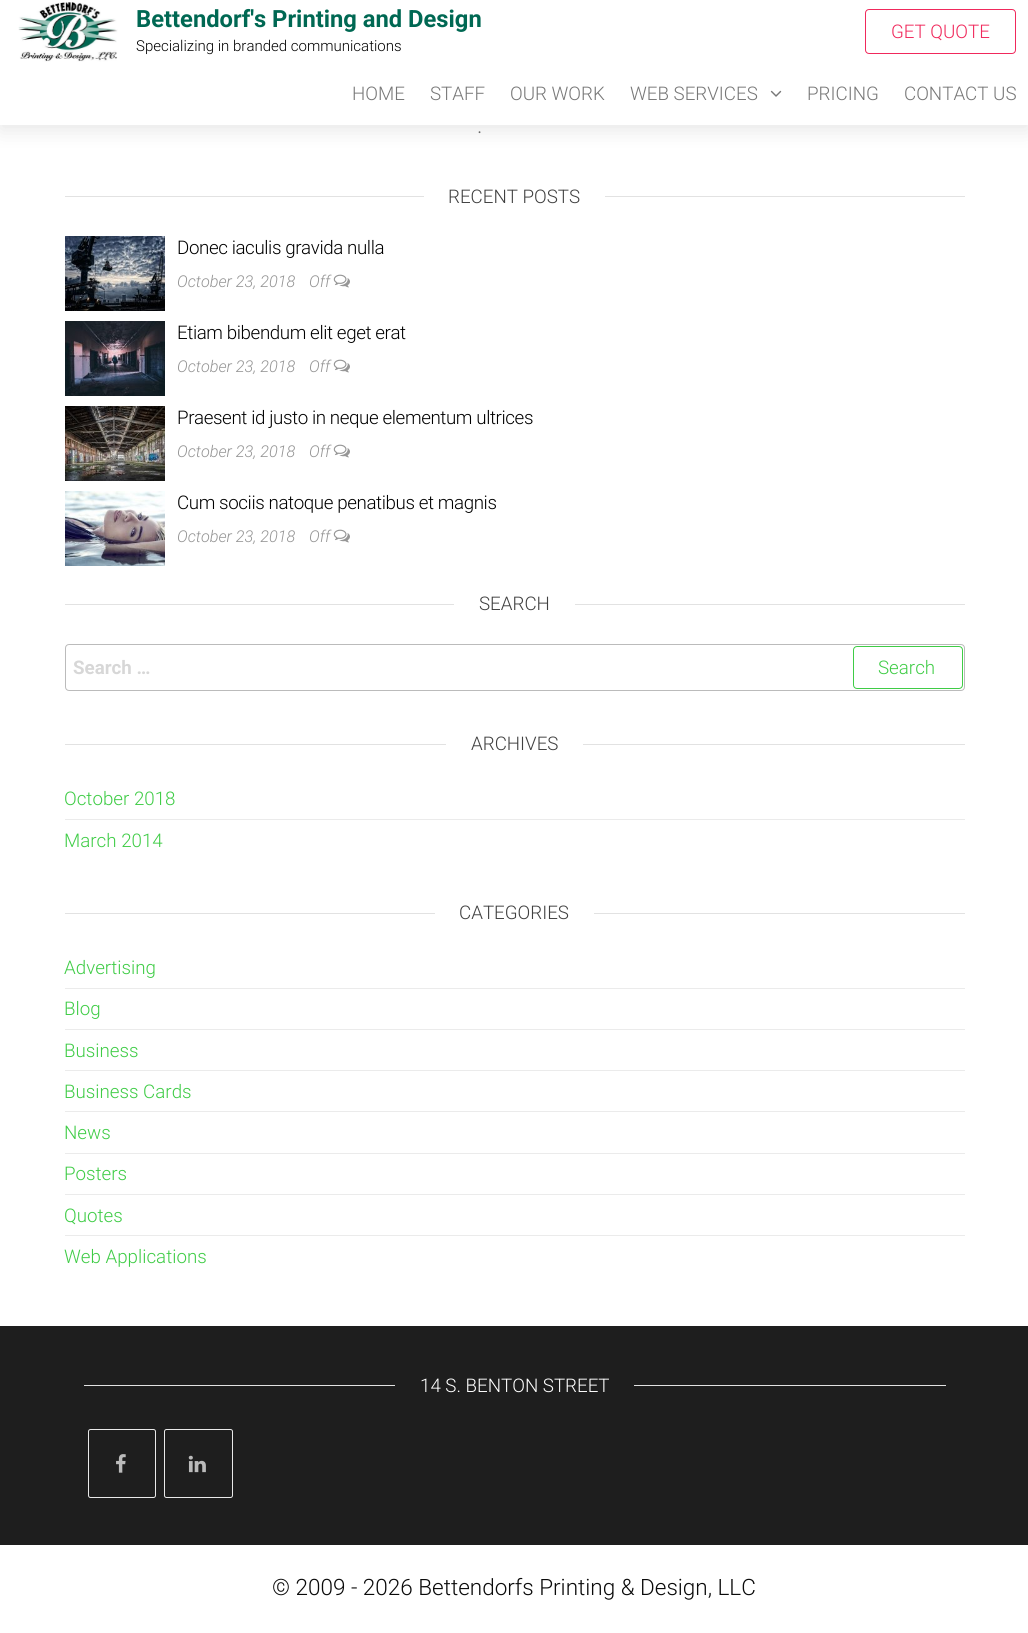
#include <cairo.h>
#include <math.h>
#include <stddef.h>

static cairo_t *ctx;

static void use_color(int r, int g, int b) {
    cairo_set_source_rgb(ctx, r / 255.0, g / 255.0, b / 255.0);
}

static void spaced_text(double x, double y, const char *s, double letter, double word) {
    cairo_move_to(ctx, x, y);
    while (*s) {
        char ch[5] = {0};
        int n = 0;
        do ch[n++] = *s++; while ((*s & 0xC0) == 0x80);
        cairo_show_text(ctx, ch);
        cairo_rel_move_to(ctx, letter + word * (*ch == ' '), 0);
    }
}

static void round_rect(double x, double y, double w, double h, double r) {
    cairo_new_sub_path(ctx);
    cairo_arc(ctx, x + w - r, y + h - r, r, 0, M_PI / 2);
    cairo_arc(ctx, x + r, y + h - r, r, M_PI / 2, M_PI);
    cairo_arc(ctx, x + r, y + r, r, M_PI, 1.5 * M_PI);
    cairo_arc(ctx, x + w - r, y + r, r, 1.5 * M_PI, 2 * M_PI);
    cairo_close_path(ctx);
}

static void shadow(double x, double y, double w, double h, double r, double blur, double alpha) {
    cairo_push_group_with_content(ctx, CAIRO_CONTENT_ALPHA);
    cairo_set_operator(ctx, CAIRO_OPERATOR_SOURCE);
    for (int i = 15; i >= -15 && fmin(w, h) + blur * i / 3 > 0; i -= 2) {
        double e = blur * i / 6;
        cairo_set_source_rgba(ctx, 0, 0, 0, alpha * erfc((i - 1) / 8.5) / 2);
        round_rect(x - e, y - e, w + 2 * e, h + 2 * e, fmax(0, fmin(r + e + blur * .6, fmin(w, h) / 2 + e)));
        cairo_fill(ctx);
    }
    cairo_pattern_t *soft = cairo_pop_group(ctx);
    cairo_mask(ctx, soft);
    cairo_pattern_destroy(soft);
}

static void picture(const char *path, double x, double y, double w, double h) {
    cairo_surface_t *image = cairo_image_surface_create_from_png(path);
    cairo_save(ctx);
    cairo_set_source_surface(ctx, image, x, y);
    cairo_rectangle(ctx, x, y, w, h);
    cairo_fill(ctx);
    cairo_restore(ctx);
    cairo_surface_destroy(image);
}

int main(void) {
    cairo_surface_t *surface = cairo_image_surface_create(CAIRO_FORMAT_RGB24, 1028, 1633);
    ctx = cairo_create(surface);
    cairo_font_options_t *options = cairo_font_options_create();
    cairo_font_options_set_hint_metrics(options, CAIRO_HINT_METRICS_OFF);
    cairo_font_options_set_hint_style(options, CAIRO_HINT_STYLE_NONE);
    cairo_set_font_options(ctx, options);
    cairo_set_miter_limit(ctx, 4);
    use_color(255, 255, 255);
    cairo_paint(ctx);
    use_color(0, 0, 0);
    shadow(0, 5, 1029, 125, 0, 10, 0.1);
    use_color(255, 255, 255);
    cairo_rectangle(ctx, 0, 0, 1028, 125);
    cairo_fill(ctx);
    picture("img1.png", 18, 2, 100, 60);
    cairo_select_font_face(ctx, "Roboto", CAIRO_FONT_SLANT_NORMAL, CAIRO_FONT_WEIGHT_BOLD);
    cairo_set_font_size(ctx, 23.75);
    use_color(0, 104, 83);
    cairo_move_to(ctx, 136, 27);
    cairo_show_text(ctx, "Bettendorf's Printing and Design");
    cairo_select_font_face(ctx, "Roboto Light", CAIRO_FONT_SLANT_NORMAL, CAIRO_FONT_WEIGHT_NORMAL);
    cairo_set_font_size(ctx, 15);
    use_color(0, 0, 0);
    cairo_move_to(ctx, 136, 51);
    cairo_show_text(ctx, "Specializing in branded communications");
    round_rect(865.5, 9.5, 150, 44, 3.5);
    use_color(240, 41, 92);
    cairo_set_line_width(ctx, 1);
    cairo_stroke(ctx);
    cairo_set_font_size(ctx, 18.75);
    cairo_move_to(ctx, 891, 38);
    cairo_show_text(ctx, "GET QUOTE");
    use_color(119, 119, 119);
    cairo_move_to(ctx, 352, 100);
    cairo_show_text(ctx, "HOME");
    cairo_move_to(ctx, 430, 100);
    cairo_show_text(ctx, "STAFF");
    cairo_move_to(ctx, 510, 100);
    cairo_show_text(ctx, "OUR WORK");
    cairo_move_to(ctx, 630, 100);
    cairo_show_text(ctx, "WEB SERVICES");
    picture("img2.png", 770, 90, 12, 7);
    cairo_move_to(ctx, 807, 100);
    cairo_show_text(ctx, "PRICING");
    cairo_move_to(ctx, 904, 100);
    cairo_show_text(ctx, "CONTACT US");
    cairo_set_font_size(ctx, 22.5);
    use_color(104, 104, 104);
    cairo_move_to(ctx, 477, 133);
    cairo_show_text(ctx, ".");
    use_color(226, 226, 226);
    cairo_rectangle(ctx, 65, 196, 900, 1);
    cairo_fill(ctx);
    use_color(255, 255, 255);
    cairo_rectangle(ctx, 424, 196, 181, 1);
    cairo_fill(ctx);
    cairo_set_font_size(ctx, 18.75);
    use_color(64, 64, 64);
    cairo_move_to(ctx, 448, 203);
    cairo_show_text(ctx, "RECENT POSTS");
    picture("img3.png", 65, 236, 100, 75);
    use_color(0, 0, 0);
    spaced_text(177, 254, "Donec iaculis gravida nulla", -0.4, 0);
    cairo_select_font_face(ctx, "Roboto Light", CAIRO_FONT_SLANT_ITALIC, CAIRO_FONT_WEIGHT_NORMAL);
    cairo_set_font_size(ctx, 16.25);
    use_color(149, 149, 149);
    cairo_move_to(ctx, 177, 287);
    cairo_show_text(ctx, "October 23, 2018");
    cairo_move_to(ctx, 309, 287);
    cairo_show_text(ctx, "Off");
    picture("img4.png", 333, 274, 17, 14);
    picture("img5.png", 65, 321, 100, 75);
    cairo_select_font_face(ctx, "Roboto Light", CAIRO_FONT_SLANT_NORMAL, CAIRO_FONT_WEIGHT_NORMAL);
    cairo_set_font_size(ctx, 18.75);
    use_color(0, 0, 0);
    spaced_text(177, 339, "Etiam bibendum elit eget erat", -0.4, 0);
    cairo_select_font_face(ctx, "Roboto Light", CAIRO_FONT_SLANT_ITALIC, CAIRO_FONT_WEIGHT_NORMAL);
    cairo_set_font_size(ctx, 16.25);
    use_color(149, 149, 149);
    cairo_move_to(ctx, 177, 372);
    cairo_show_text(ctx, "October 23, 2018");
    cairo_move_to(ctx, 309, 372);
    cairo_show_text(ctx, "Off");
    picture("img4.png", 333, 359, 17, 14);
    picture("img6.png", 65, 406, 100, 75);
    cairo_select_font_face(ctx, "Roboto Light", CAIRO_FONT_SLANT_NORMAL, CAIRO_FONT_WEIGHT_NORMAL);
    cairo_set_font_size(ctx, 18.75);
    use_color(0, 0, 0);
    spaced_text(177, 424, "Praesent id justo in neque elementum ultrices", -0.4, 0);
    cairo_select_font_face(ctx, "Roboto Light", CAIRO_FONT_SLANT_ITALIC, CAIRO_FONT_WEIGHT_NORMAL);
    cairo_set_font_size(ctx, 16.25);
    use_color(149, 149, 149);
    cairo_move_to(ctx, 177, 457);
    cairo_show_text(ctx, "October 23, 2018");
    cairo_move_to(ctx, 309, 457);
    cairo_show_text(ctx, "Off");
    picture("img4.png", 333, 444, 17, 14);
    picture("img7.png", 65, 491, 100, 75);
    cairo_select_font_face(ctx, "Roboto Light", CAIRO_FONT_SLANT_NORMAL, CAIRO_FONT_WEIGHT_NORMAL);
    cairo_set_font_size(ctx, 18.75);
    use_color(0, 0, 0);
    spaced_text(177, 509, "Cum sociis natoque penatibus et magnis", -0.4, 0);
    cairo_select_font_face(ctx, "Roboto Light", CAIRO_FONT_SLANT_ITALIC, CAIRO_FONT_WEIGHT_NORMAL);
    cairo_set_font_size(ctx, 16.25);
    use_color(149, 149, 149);
    cairo_move_to(ctx, 177, 542);
    cairo_show_text(ctx, "October 23, 2018");
    cairo_move_to(ctx, 309, 542);
    cairo_show_text(ctx, "Off");
    picture("img4.png", 333, 529, 17, 14);
    use_color(226, 226, 226);
    cairo_rectangle(ctx, 65, 604, 900, 1);
    cairo_fill(ctx);
    use_color(255, 255, 255);
    cairo_rectangle(ctx, 454, 604, 121, 1);
    cairo_fill(ctx);
    cairo_select_font_face(ctx, "Roboto Light", CAIRO_FONT_SLANT_NORMAL, CAIRO_FONT_WEIGHT_NORMAL);
    cairo_set_font_size(ctx, 18.75);
    use_color(64, 64, 64);
    cairo_move_to(ctx, 479, 610);
    cairo_show_text(ctx, "SEARCH");
    round_rect(65.5, 644.5, 899, 46, 3.5);
    use_color(187, 187, 187);
    cairo_stroke(ctx);
    cairo_select_font_face(ctx, "Roboto", CAIRO_FONT_SLANT_NORMAL, CAIRO_FONT_WEIGHT_BOLD);
    use_color(215, 215, 215);
    cairo_move_to(ctx, 73, 674);
    cairo_show_text(ctx, "Search …");
    round_rect(853.5, 646.5, 109, 42, 3.5);
    use_color(63, 204, 70);
    cairo_stroke(ctx);
    cairo_select_font_face(ctx, "Roboto Light", CAIRO_FONT_SLANT_NORMAL, CAIRO_FONT_WEIGHT_NORMAL);
    cairo_move_to(ctx, 878, 674);
    cairo_show_text(ctx, "Search");
    use_color(226, 226, 226);
    cairo_rectangle(ctx, 65, 744, 900, 1);
    cairo_fill(ctx);
    use_color(255, 255, 255);
    cairo_rectangle(ctx, 446, 744, 137, 1);
    cairo_fill(ctx);
    use_color(64, 64, 64);
    cairo_move_to(ctx, 471, 750);
    cairo_show_text(ctx, "ARCHIVES");
    use_color(235, 235, 235);
    cairo_rectangle(ctx, 65, 819, 900, 1);
    cairo_fill(ctx);
    use_color(63, 204, 70);
    cairo_move_to(ctx, 64, 805);
    cairo_show_text(ctx, "October 2018");
    cairo_move_to(ctx, 64, 847);
    cairo_show_text(ctx, "March 2014");
    use_color(226, 226, 226);
    cairo_rectangle(ctx, 65, 913, 900, 1);
    cairo_fill(ctx);
    use_color(255, 255, 255);
    cairo_rectangle(ctx, 435, 913, 159, 1);
    cairo_fill(ctx);
    use_color(64, 64, 64);
    cairo_move_to(ctx, 459, 919);
    cairo_show_text(ctx, "CATEGORIES");
    use_color(235, 235, 235);
    cairo_rectangle(ctx, 65, 988, 900, 1);
    cairo_fill(ctx);
    use_color(63, 204, 70);
    cairo_move_to(ctx, 64, 974);
    cairo_show_text(ctx, "Advertising");
    use_color(235, 235, 235);
    cairo_rectangle(ctx, 65, 1029, 900, 1);
    cairo_fill(ctx);
    use_color(63, 204, 70);
    cairo_move_to(ctx, 64, 1015);
    cairo_show_text(ctx, "Blog");
    use_color(235, 235, 235);
    cairo_rectangle(ctx, 65, 1070, 900, 1);
    cairo_fill(ctx);
    use_color(63, 204, 70);
    cairo_move_to(ctx, 64, 1057);
    cairo_show_text(ctx, "Business");
    use_color(235, 235, 235);
    cairo_rectangle(ctx, 65, 1111, 900, 1);
    cairo_fill(ctx);
    use_color(63, 204, 70);
    cairo_move_to(ctx, 64, 1098);
    cairo_show_text(ctx, "Business Cards");
    use_color(235, 235, 235);
    cairo_rectangle(ctx, 65, 1153, 900, 1);
    cairo_fill(ctx);
    use_color(63, 204, 70);
    cairo_move_to(ctx, 64, 1139);
    cairo_show_text(ctx, "News");
    use_color(235, 235, 235);
    cairo_rectangle(ctx, 65, 1194, 900, 1);
    cairo_fill(ctx);
    use_color(63, 204, 70);
    cairo_move_to(ctx, 64, 1180);
    cairo_show_text(ctx, "Posters");
    use_color(235, 235, 235);
    cairo_rectangle(ctx, 65, 1235, 900, 1);
    cairo_fill(ctx);
    use_color(63, 204, 70);
    cairo_move_to(ctx, 64, 1222);
    cairo_show_text(ctx, "Quotes");
    cairo_move_to(ctx, 64, 1263);
    cairo_show_text(ctx, "Web Applications");
    use_color(30, 30, 30);
    cairo_rectangle(ctx, 0, 1326, 1028, 219);
    cairo_fill(ctx);
    use_color(226, 226, 226);
    cairo_rectangle(ctx, 84, 1385, 862, 1);
    cairo_fill(ctx);
    use_color(30, 30, 30);
    cairo_rectangle(ctx, 395, 1385, 239, 1);
    cairo_fill(ctx);
    use_color(255, 255, 255);
    cairo_move_to(ctx, 420, 1392);
    cairo_show_text(ctx, "14 S. BENTON STREET");
    round_rect(88.5, 1429.5, 67, 68, 2);
    use_color(233, 233, 233);
    cairo_stroke(ctx);
    picture("img8.png", 116, 1454, 10, 19);
    round_rect(164.5, 1429.5, 68, 68, 2);
    cairo_stroke(ctx);
    picture("img9.png", 188, 1455, 18, 18);
    cairo_set_font_size(ctx, 22.5);
    use_color(10, 10, 10);
    cairo_move_to(ctx, 272, 1595);
    cairo_show_text(ctx, "© 2009 - 2026 Bettendorfs Printing & Design, LLC");
    cairo_surface_write_to_png(surface, "result.png");
    cairo_font_options_destroy(options);
    cairo_destroy(ctx);
    cairo_surface_destroy(surface);
    return 0;
}
